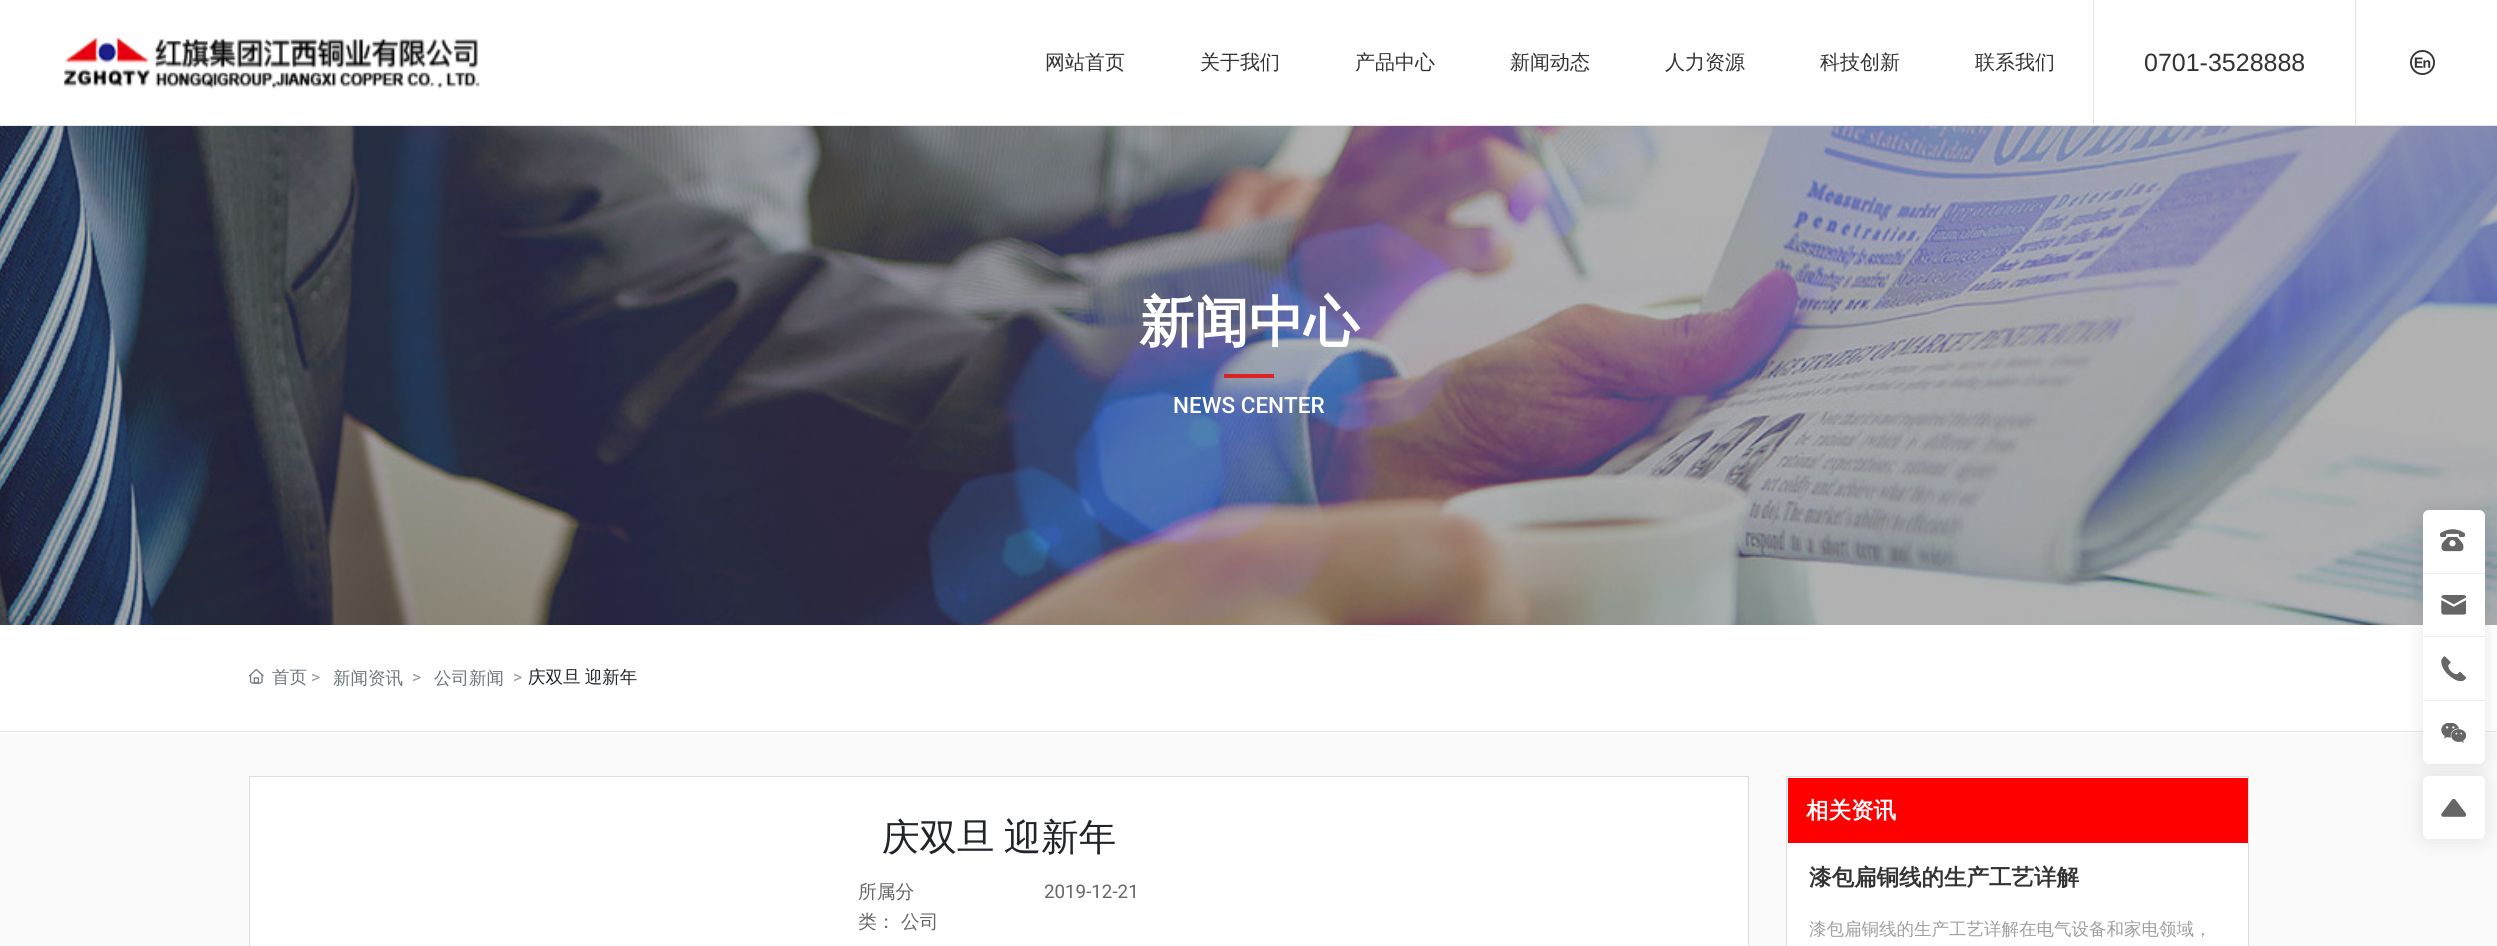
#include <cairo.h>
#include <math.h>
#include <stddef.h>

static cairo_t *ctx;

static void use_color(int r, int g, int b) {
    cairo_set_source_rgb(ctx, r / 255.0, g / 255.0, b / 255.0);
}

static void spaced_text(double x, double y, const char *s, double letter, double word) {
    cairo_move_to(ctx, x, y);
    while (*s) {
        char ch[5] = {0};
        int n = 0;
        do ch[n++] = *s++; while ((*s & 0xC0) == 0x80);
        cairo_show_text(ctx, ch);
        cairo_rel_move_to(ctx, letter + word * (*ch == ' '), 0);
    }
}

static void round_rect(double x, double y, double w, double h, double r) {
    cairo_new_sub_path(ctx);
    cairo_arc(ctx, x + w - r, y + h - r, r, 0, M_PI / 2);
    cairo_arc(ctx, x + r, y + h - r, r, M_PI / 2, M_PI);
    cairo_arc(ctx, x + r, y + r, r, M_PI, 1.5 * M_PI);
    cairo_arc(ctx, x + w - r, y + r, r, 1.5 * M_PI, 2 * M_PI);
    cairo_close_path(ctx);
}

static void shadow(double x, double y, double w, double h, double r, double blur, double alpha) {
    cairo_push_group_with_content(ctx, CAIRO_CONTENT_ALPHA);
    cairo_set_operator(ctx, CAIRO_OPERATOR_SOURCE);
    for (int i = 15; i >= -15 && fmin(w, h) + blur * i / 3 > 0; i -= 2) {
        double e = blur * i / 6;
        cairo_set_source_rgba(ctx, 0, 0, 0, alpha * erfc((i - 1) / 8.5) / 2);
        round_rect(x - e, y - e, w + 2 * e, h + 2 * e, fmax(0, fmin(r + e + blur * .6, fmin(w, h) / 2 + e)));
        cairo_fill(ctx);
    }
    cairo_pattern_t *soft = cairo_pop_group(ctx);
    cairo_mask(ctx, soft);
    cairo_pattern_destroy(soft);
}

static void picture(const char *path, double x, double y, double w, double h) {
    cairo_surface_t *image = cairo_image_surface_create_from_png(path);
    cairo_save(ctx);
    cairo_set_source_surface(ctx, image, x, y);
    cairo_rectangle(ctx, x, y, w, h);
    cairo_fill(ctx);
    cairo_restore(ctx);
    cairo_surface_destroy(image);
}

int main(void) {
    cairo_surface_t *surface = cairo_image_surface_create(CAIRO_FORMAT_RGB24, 2497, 946);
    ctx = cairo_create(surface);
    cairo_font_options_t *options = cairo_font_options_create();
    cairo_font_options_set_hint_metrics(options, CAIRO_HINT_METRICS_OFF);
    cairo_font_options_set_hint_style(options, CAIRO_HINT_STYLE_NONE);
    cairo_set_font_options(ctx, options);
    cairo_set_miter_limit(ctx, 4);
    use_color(255, 255, 255);
    cairo_paint(ctx);
    use_color(230, 230, 230);
    cairo_rectangle(ctx, 0, 125, 2497, 1);
    cairo_fill(ctx);
    picture("img1.png", 63, 37, 417, 52);
    cairo_select_font_face(ctx, "WenQuanYi Zen Hei Medium", CAIRO_FONT_SLANT_NORMAL, CAIRO_FONT_WEIGHT_NORMAL);
    cairo_set_font_size(ctx, 20);
    use_color(51, 51, 51);
    cairo_move_to(ctx, 1045, 69);
    cairo_show_text(ctx, "网站首页");
    cairo_move_to(ctx, 1200, 69);
    cairo_show_text(ctx, "关于我们");
    cairo_move_to(ctx, 1355, 69);
    cairo_show_text(ctx, "产品中心");
    cairo_move_to(ctx, 1510, 69);
    cairo_show_text(ctx, "新闻动态");
    cairo_move_to(ctx, 1665, 69);
    cairo_show_text(ctx, "人力资源");
    cairo_move_to(ctx, 1820, 69);
    cairo_show_text(ctx, "科技创新");
    cairo_move_to(ctx, 1975, 69);
    cairo_show_text(ctx, "联系我们");
    use_color(230, 230, 230);
    cairo_rectangle(ctx, 2093, 0, 1, 125);
    cairo_fill(ctx);
    cairo_select_font_face(ctx, "Liberation Sans", CAIRO_FONT_SLANT_NORMAL, CAIRO_FONT_WEIGHT_NORMAL);
    cairo_set_font_size(ctx, 25);
    use_color(51, 51, 51);
    cairo_move_to(ctx, 2144, 71);
    cairo_show_text(ctx, "0701-3528888");
    use_color(230, 230, 230);
    cairo_rectangle(ctx, 2355, 0, 1, 125);
    cairo_fill(ctx);
    picture("img2.png", 2410, 50, 25, 25);
    picture("img3.png", 0, 126, 2497, 499);
    cairo_select_font_face(ctx, "WenQuanYi Zen Hei", CAIRO_FONT_SLANT_NORMAL, CAIRO_FONT_WEIGHT_BOLD);
    cairo_set_font_size(ctx, 55);
    use_color(255, 255, 255);
    cairo_move_to(ctx, 1139, 341);
    cairo_show_text(ctx, "新闻中心");
    use_color(220, 34, 38);
    cairo_rectangle(ctx, 1224, 374, 50, 4);
    cairo_fill(ctx);
    cairo_select_font_face(ctx, "Roboto Medium", CAIRO_FONT_SLANT_NORMAL, CAIRO_FONT_WEIGHT_NORMAL);
    cairo_set_font_size(ctx, 22.5);
    use_color(255, 255, 255);
    cairo_move_to(ctx, 1173, 413);
    cairo_show_text(ctx, "NEWS CENTER");
    use_color(230, 230, 230);
    cairo_rectangle(ctx, 0, 731, 2497, 1);
    cairo_fill(ctx);
    picture("img4.png", 249, 669, 15, 15);
    cairo_select_font_face(ctx, "WenQuanYi Zen Hei Medium", CAIRO_FONT_SLANT_NORMAL, CAIRO_FONT_WEIGHT_NORMAL);
    cairo_set_font_size(ctx, 17.5);
    use_color(108, 117, 125);
    cairo_move_to(ctx, 272, 683);
    cairo_show_text(ctx, "首页");
    cairo_select_font_face(ctx, "Roboto", CAIRO_FONT_SLANT_NORMAL, CAIRO_FONT_WEIGHT_NORMAL);
    use_color(153, 153, 153);
    cairo_move_to(ctx, 311, 683);
    cairo_show_text(ctx, ">");
    cairo_select_font_face(ctx, "WenQuanYi Zen Hei Medium", CAIRO_FONT_SLANT_NORMAL, CAIRO_FONT_WEIGHT_NORMAL);
    use_color(108, 117, 125);
    cairo_move_to(ctx, 333, 684);
    cairo_show_text(ctx, "新闻资讯");
    cairo_select_font_face(ctx, "Roboto", CAIRO_FONT_SLANT_NORMAL, CAIRO_FONT_WEIGHT_NORMAL);
    use_color(153, 153, 153);
    cairo_move_to(ctx, 412, 683);
    cairo_show_text(ctx, ">");
    cairo_select_font_face(ctx, "WenQuanYi Zen Hei Medium", CAIRO_FONT_SLANT_NORMAL, CAIRO_FONT_WEIGHT_NORMAL);
    use_color(108, 117, 125);
    cairo_move_to(ctx, 434, 684);
    cairo_show_text(ctx, "公司新闻");
    cairo_select_font_face(ctx, "Roboto", CAIRO_FONT_SLANT_NORMAL, CAIRO_FONT_WEIGHT_NORMAL);
    use_color(153, 153, 153);
    cairo_move_to(ctx, 513, 683);
    cairo_show_text(ctx, ">");
    cairo_select_font_face(ctx, "WenQuanYi Zen Hei Medium", CAIRO_FONT_SLANT_NORMAL, CAIRO_FONT_WEIGHT_NORMAL);
    use_color(33, 37, 41);
    spaced_text(528, 683, "庆双旦 迎新年", 0, -1);
    use_color(250, 250, 250);
    cairo_rectangle(ctx, 0, 733, 2497, 213);
    cairo_fill(ctx);
    use_color(0, 0, 0);
    shadow(2423, 510, 62, 254, 6, 9.5, 0.1);
    use_color(255, 255, 255);
    round_rect(2423, 510, 62, 254, 6);
    cairo_fill(ctx);
    use_color(238, 238, 238);
    cairo_rectangle(ctx, 2423, 573, 62, 1);
    cairo_fill(ctx);
    picture("img5.png", 2440, 529, 25, 23);
    cairo_rectangle(ctx, 2423, 636, 62, 1);
    cairo_fill(ctx);
    picture("img6.png", 2441, 595, 25, 20);
    cairo_rectangle(ctx, 2423, 700, 62, 1);
    cairo_fill(ctx);
    picture("img7.png", 2441, 656, 25, 25);
    picture("img8.png", 2441, 723, 25, 20);
    use_color(0, 0, 0);
    shadow(2423, 776, 62, 63, 6, 9.5, 0.1);
    use_color(255, 255, 255);
    round_rect(2423, 776, 62, 63, 6);
    cairo_fill(ctx);
    picture("img9.png", 2441, 799, 25, 18);
    cairo_rectangle(ctx, 249.5, 776.5, 1499, 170);
    cairo_fill_preserve(ctx);
    use_color(221, 221, 221);
    cairo_set_line_width(ctx, 1);
    cairo_stroke(ctx);
    cairo_set_font_size(ctx, 37.5);
    use_color(33, 37, 41);
    spaced_text(882, 850, "庆双旦 迎新年", 0, -2);
    cairo_set_font_size(ctx, 18.75);
    use_color(102, 102, 102);
    cairo_move_to(ctx, 858, 898);
    cairo_show_text(ctx, "所属分");
    cairo_move_to(ctx, 858, 928);
    cairo_show_text(ctx, "类：");
    cairo_move_to(ctx, 901, 928);
    cairo_show_text(ctx, "公司");
    cairo_select_font_face(ctx, "Roboto", CAIRO_FONT_SLANT_NORMAL, CAIRO_FONT_WEIGHT_NORMAL);
    cairo_move_to(ctx, 1044, 898);
    cairo_show_text(ctx, "2019-12-21");
    use_color(255, 255, 255);
    cairo_rectangle(ctx, 1786.5, 776.5, 462, 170);
    cairo_fill_preserve(ctx);
    use_color(221, 221, 221);
    cairo_stroke(ctx);
    use_color(254, 0, 0);
    cairo_rectangle(ctx, 1788, 778, 460, 65);
    cairo_fill(ctx);
    cairo_select_font_face(ctx, "WenQuanYi Zen Hei", CAIRO_FONT_SLANT_NORMAL, CAIRO_FONT_WEIGHT_BOLD);
    cairo_set_font_size(ctx, 22.5);
    use_color(255, 255, 255);
    cairo_move_to(ctx, 1806, 818);
    cairo_show_text(ctx, "相关资讯");
    use_color(51, 51, 51);
    cairo_move_to(ctx, 1809, 885);
    cairo_show_text(ctx, "漆包扁铜线的生产工艺详解");
    cairo_select_font_face(ctx, "WenQuanYi Zen Hei Medium", CAIRO_FONT_SLANT_NORMAL, CAIRO_FONT_WEIGHT_NORMAL);
    cairo_set_font_size(ctx, 17.5);
    use_color(159, 159, 159);
    cairo_move_to(ctx, 1809, 935);
    cairo_show_text(ctx, "漆包扁铜线的生产工艺详解在电气设备和家电领域，");
    cairo_surface_write_to_png(surface, "result.png");
    cairo_font_options_destroy(options);
    cairo_destroy(ctx);
    cairo_surface_destroy(surface);
    return 0;
}
